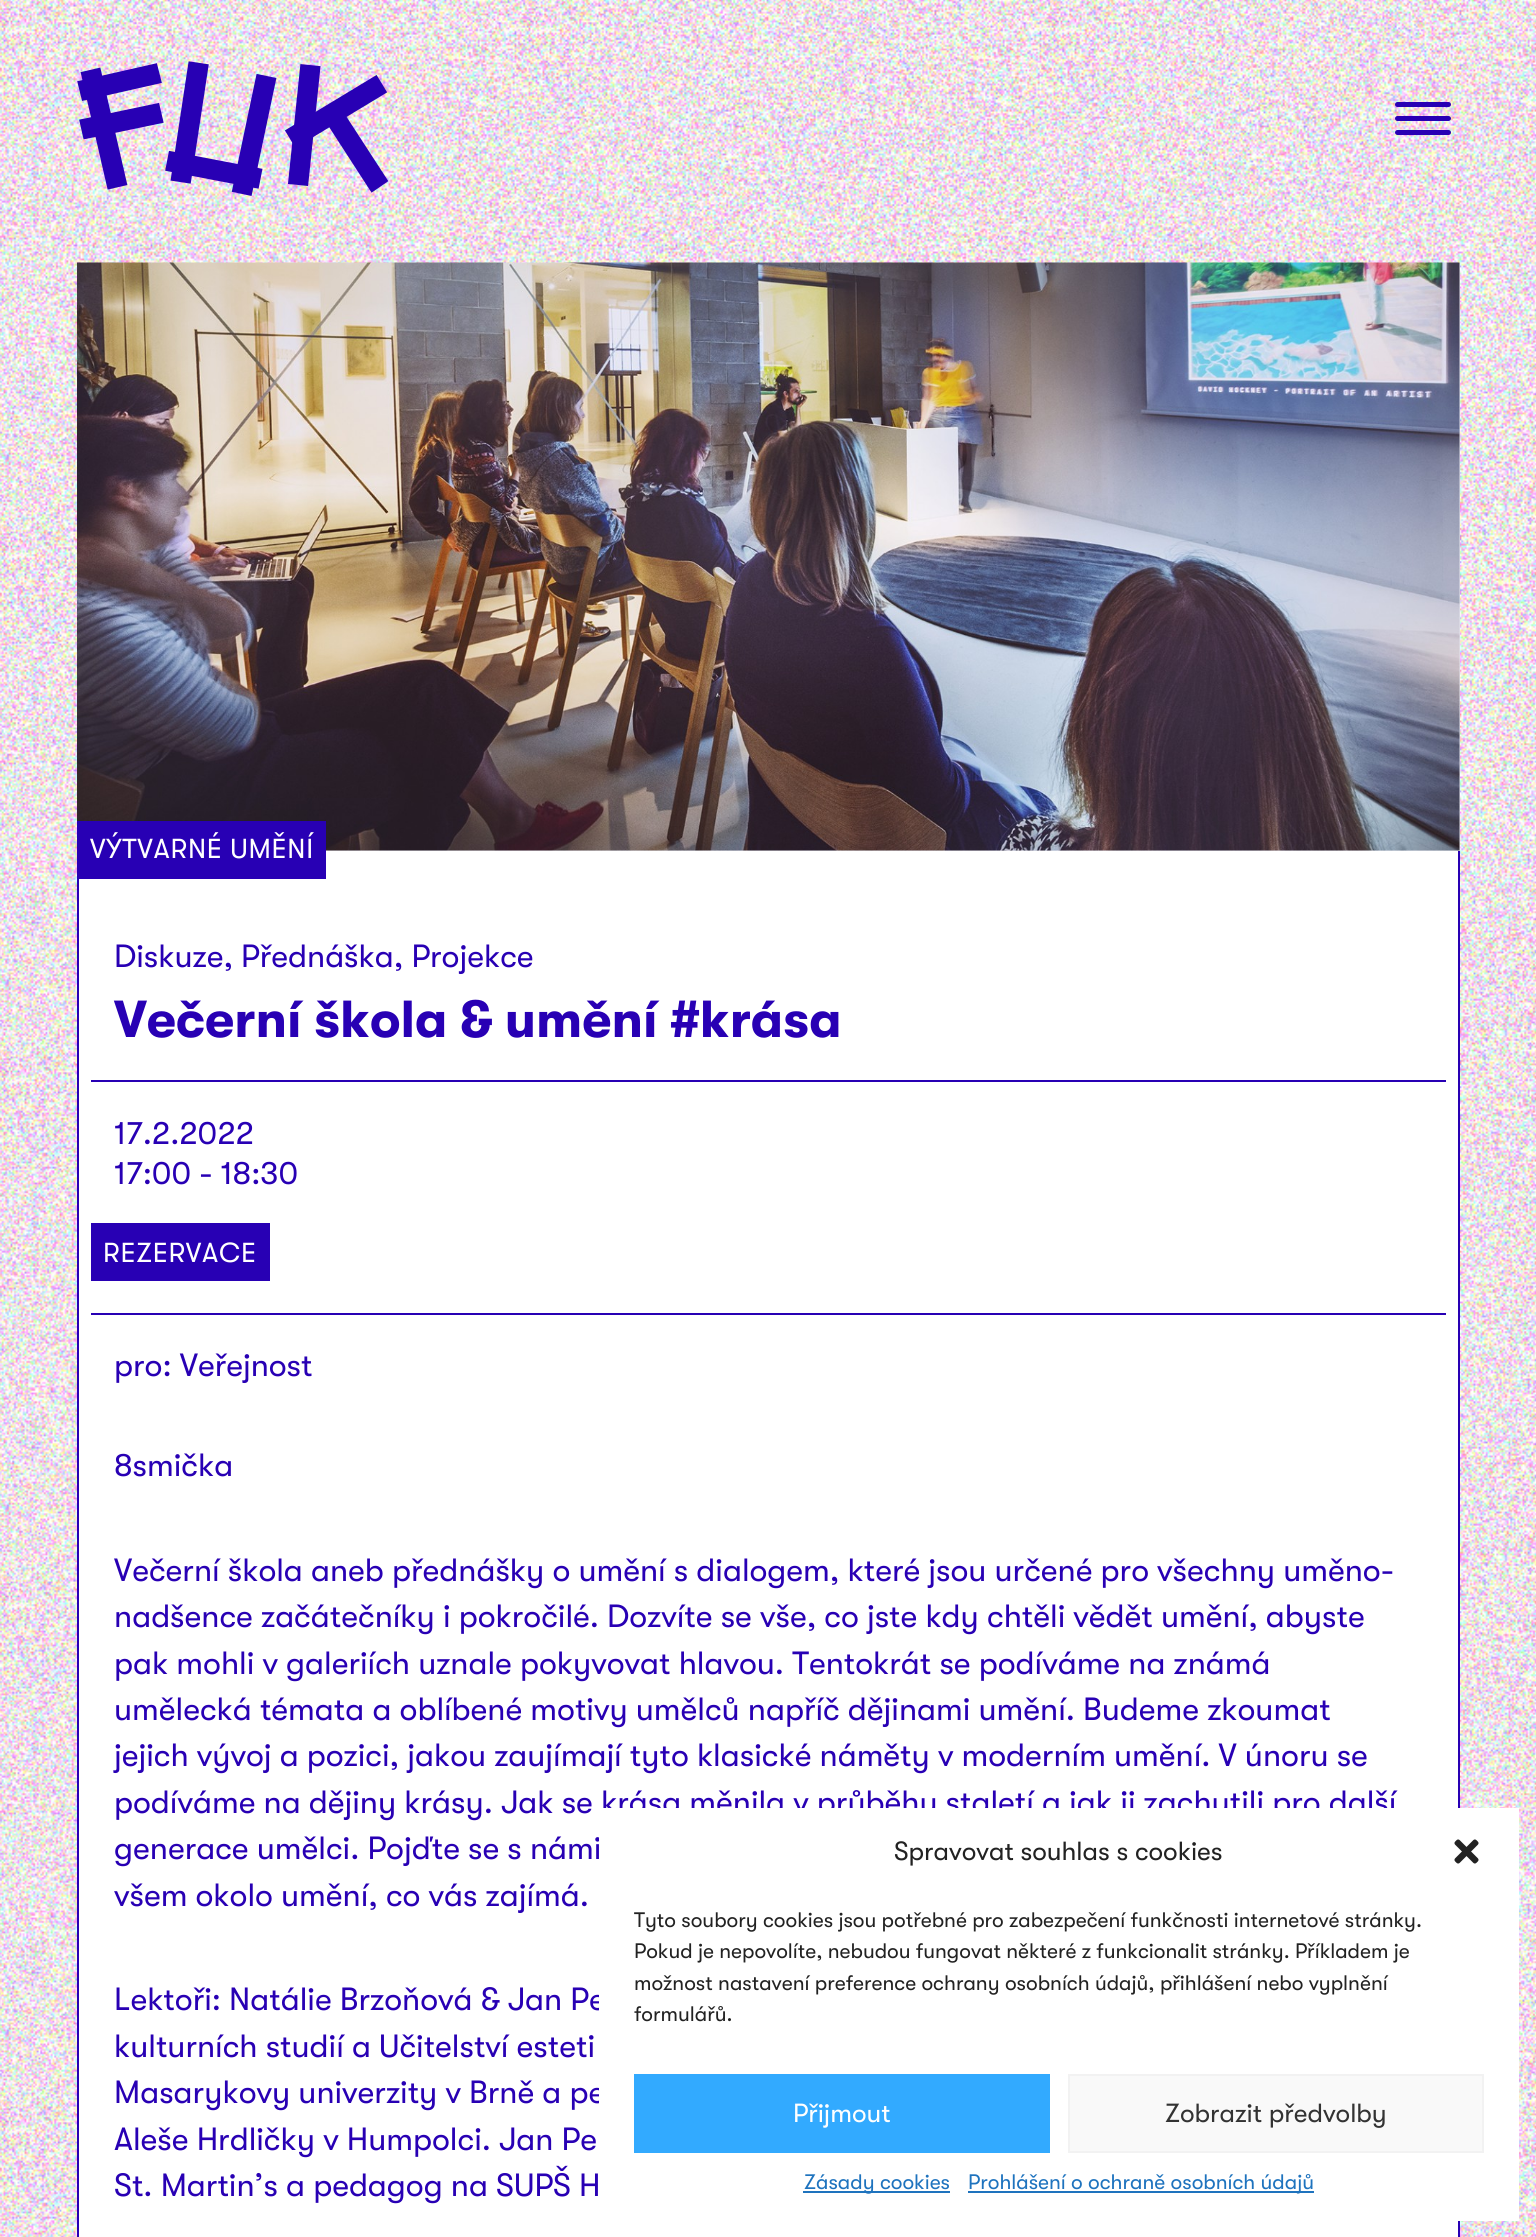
#include <cairo.h>
#include <math.h>
#include <stddef.h>

static cairo_t *ctx;

static void use_color(int r, int g, int b) {
    cairo_set_source_rgb(ctx, r / 255.0, g / 255.0, b / 255.0);
}

static void spaced_text(double x, double y, const char *s, double letter, double word) {
    cairo_move_to(ctx, x, y);
    while (*s) {
        char ch[5] = {0};
        int n = 0;
        do ch[n++] = *s++; while ((*s & 0xC0) == 0x80);
        cairo_show_text(ctx, ch);
        cairo_rel_move_to(ctx, letter + word * (*ch == ' '), 0);
    }
}

static void round_rect(double x, double y, double w, double h, double r) {
    cairo_new_sub_path(ctx);
    cairo_arc(ctx, x + w - r, y + h - r, r, 0, M_PI / 2);
    cairo_arc(ctx, x + r, y + h - r, r, M_PI / 2, M_PI);
    cairo_arc(ctx, x + r, y + r, r, M_PI, 1.5 * M_PI);
    cairo_arc(ctx, x + w - r, y + r, r, 1.5 * M_PI, 2 * M_PI);
    cairo_close_path(ctx);
}

static void picture(const char *path, double x, double y, double w, double h) {
    cairo_surface_t *image = cairo_image_surface_create_from_png(path);
    cairo_save(ctx);
    cairo_set_source_surface(ctx, image, x, y);
    cairo_rectangle(ctx, x, y, w, h);
    cairo_fill(ctx);
    cairo_restore(ctx);
    cairo_surface_destroy(image);
}

int main(void) {
    cairo_surface_t *surface = cairo_image_surface_create(CAIRO_FORMAT_RGB24, 1536, 2237);
    ctx = cairo_create(surface);
    cairo_font_options_t *options = cairo_font_options_create();
    cairo_font_options_set_hint_metrics(options, CAIRO_HINT_METRICS_OFF);
    cairo_font_options_set_hint_style(options, CAIRO_HINT_STYLE_NONE);
    cairo_set_font_options(ctx, options);
    cairo_set_miter_limit(ctx, 4);
    use_color(255, 255, 255);
    cairo_paint(ctx);
    picture("img1.png", 0, 0, 1536, 2237);
    picture("img2.png", 77, 61, 312, 135);
    use_color(40, 0, 180);
    round_rect(1395, 116, 56, 5, 2.5);
    cairo_fill(ctx);
    round_rect(1395, 102, 56, 5, 2.5);
    cairo_fill(ctx);
    round_rect(1395, 130, 56, 5, 2.5);
    cairo_fill(ctx);
    use_color(255, 255, 255);
    cairo_rectangle(ctx, 79, 851, 1379, 1386);
    cairo_fill(ctx);
    cairo_rectangle(ctx, 78, 264, 1381, 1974);
    use_color(40, 0, 180);
    cairo_stroke(ctx);
    use_color(229, 229, 237);
    cairo_rectangle(ctx, 326, 263, 1134, 588);
    cairo_fill(ctx);
    picture("img3.png", 77, 262, 1383, 589);
    use_color(40, 0, 180);
    cairo_rectangle(ctx, 77, 821, 249, 58);
    cairo_fill(ctx);
    cairo_select_font_face(ctx, "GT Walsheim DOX", CAIRO_FONT_SLANT_NORMAL, CAIRO_FONT_WEIGHT_NORMAL);
    cairo_set_font_size(ctx, 27.5);
    use_color(255, 255, 255);
    spaced_text(90, 858, "VÝTVARNÉ UMĚNÍ", 0.75, 0);
    cairo_set_font_size(ctx, 32.15);
    use_color(40, 0, 180);
    cairo_move_to(ctx, 114, 967);
    cairo_show_text(ctx, "Diskuze, Přednáška, Projekce");
    cairo_select_font_face(ctx, "GT Walsheim DOX", CAIRO_FONT_SLANT_NORMAL, CAIRO_FONT_WEIGHT_BOLD);
    cairo_set_font_size(ctx, 52);
    cairo_move_to(ctx, 114, 1037);
    cairo_show_text(ctx, "Večerní škola & umění #krása");
    cairo_rectangle(ctx, 91, 1080, 1355, 2);
    cairo_fill(ctx);
    cairo_select_font_face(ctx, "GT Walsheim DOX", CAIRO_FONT_SLANT_NORMAL, CAIRO_FONT_WEIGHT_NORMAL);
    cairo_set_font_size(ctx, 32.15);
    cairo_move_to(ctx, 114, 1144);
    cairo_show_text(ctx, "17.2.2022");
    cairo_move_to(ctx, 114, 1184);
    cairo_show_text(ctx, "17:00 - 18:30");
    cairo_rectangle(ctx, 91, 1223, 179, 58);
    cairo_fill(ctx);
    cairo_set_font_size(ctx, 27.5);
    use_color(255, 255, 255);
    spaced_text(103, 1262, "REZERVACE", 0.75, 0);
    use_color(40, 0, 180);
    cairo_rectangle(ctx, 91, 1313, 1355, 2);
    cairo_fill(ctx);
    cairo_set_font_size(ctx, 32.15);
    cairo_move_to(ctx, 114, 1376);
    cairo_show_text(ctx, "pro: Veřejnost");
    cairo_move_to(ctx, 114, 1476);
    cairo_show_text(ctx, "8smička");
    cairo_move_to(ctx, 114, 1581);
    cairo_show_text(ctx, "Večerní škola aneb přednášky o umění s dialogem, které jsou určené pro všechny uměno-");
    cairo_move_to(ctx, 114, 1627);
    cairo_show_text(ctx, "nadšence začátečníky i pokročilé. Dozvíte se vše, co jste kdy chtěli vědět umění, abyste");
    cairo_move_to(ctx, 114, 1674);
    cairo_show_text(ctx, "pak mohli v galeriích uznale pokyvovat hlavou. Tentokrát se podíváme na známá");
    cairo_move_to(ctx, 114, 1720);
    cairo_show_text(ctx, "umělecká témata a oblíbené motivy umělců napříč dějinami umění. Budeme zkoumat");
    cairo_move_to(ctx, 114, 1766);
    cairo_show_text(ctx, "jejich vývoj a pozici, jakou zaujímají tyto klasické náměty v moderním umění. V únoru se");
    cairo_move_to(ctx, 114, 1813);
    cairo_show_text(ctx, "podíváme na dějiny krásy. Jak se krása měnila v průběhu staletí a jak ji zachytili pro další");
    cairo_move_to(ctx, 114, 1859);
    cairo_show_text(ctx, "generace umělci. Pojďte se s námi");
    cairo_move_to(ctx, 114, 1906);
    cairo_show_text(ctx, "všem okolo umění, co vás zajímá.");
    cairo_move_to(ctx, 114, 2010);
    cairo_show_text(ctx, "Lektoři: Natálie Brzoňová & Jan Pe");
    cairo_move_to(ctx, 114, 2057);
    cairo_show_text(ctx, "kulturních studií a Učitelství esteti");
    cairo_move_to(ctx, 114, 2103);
    cairo_show_text(ctx, "Masarykovy univerzity v Brně a pe");
    cairo_move_to(ctx, 114, 2150);
    cairo_show_text(ctx, "Aleše Hrdličky v Humpolci. Jan Pe");
    cairo_move_to(ctx, 114, 2196);
    cairo_show_text(ctx, "St. Martin’s a pedagog na SUPŠ H");
    use_color(255, 255, 255);
    cairo_rectangle(ctx, 599, 1808, 920, 413);
    cairo_fill(ctx);
    cairo_set_font_size(ctx, 26.25);
    use_color(34, 34, 34);
    cairo_move_to(ctx, 894, 1860);
    cairo_show_text(ctx, "Spravovat souhlas s cookies");
    picture("img4.png", 1454, 1839, 25, 25);
    cairo_set_font_size(ctx, 21);
    cairo_move_to(ctx, 634, 1927);
    cairo_show_text(ctx, "Tyto soubory cookies jsou potřebné pro zabezpečení funkčnosti internetové stránky.");
    cairo_move_to(ctx, 634, 1958);
    cairo_show_text(ctx, "Pokud je nepovolíte, nebudou fungovat některé z funkcionalit stránky. Příkladem je");
    cairo_move_to(ctx, 634, 1990);
    cairo_show_text(ctx, "možnost nastavení preference ochrany osobních údajů, přihlášení nebo vyplnění");
    cairo_move_to(ctx, 634, 2021);
    cairo_show_text(ctx, "formulářů.");
    use_color(50, 170, 255);
    cairo_rectangle(ctx, 634, 2074, 416, 79);
    cairo_fill(ctx);
    cairo_set_font_size(ctx, 26.25);
    use_color(255, 255, 255);
    cairo_move_to(ctx, 793, 2122);
    cairo_show_text(ctx, "Přijmout");
    use_color(249, 249, 249);
    cairo_rectangle(ctx, 1069, 2075, 414, 77);
    cairo_fill_preserve(ctx);
    use_color(242, 242, 242);
    cairo_stroke(ctx);
    use_color(51, 51, 51);
    cairo_move_to(ctx, 1165, 2122);
    cairo_show_text(ctx, "Zobrazit předvolby");
    use_color(30, 115, 190);
    cairo_rectangle(ctx, 803, 2191, 147, 2);
    cairo_fill(ctx);
    cairo_set_font_size(ctx, 21);
    cairo_move_to(ctx, 804, 2189);
    cairo_show_text(ctx, "Zásady cookies");
    cairo_rectangle(ctx, 968, 2191, 346, 2);
    cairo_fill(ctx);
    cairo_move_to(ctx, 968, 2189);
    cairo_show_text(ctx, "Prohlášení o ochraně osobních údajů");
    cairo_surface_write_to_png(surface, "result.png");
    cairo_font_options_destroy(options);
    cairo_destroy(ctx);
    cairo_surface_destroy(surface);
    return 0;
}
